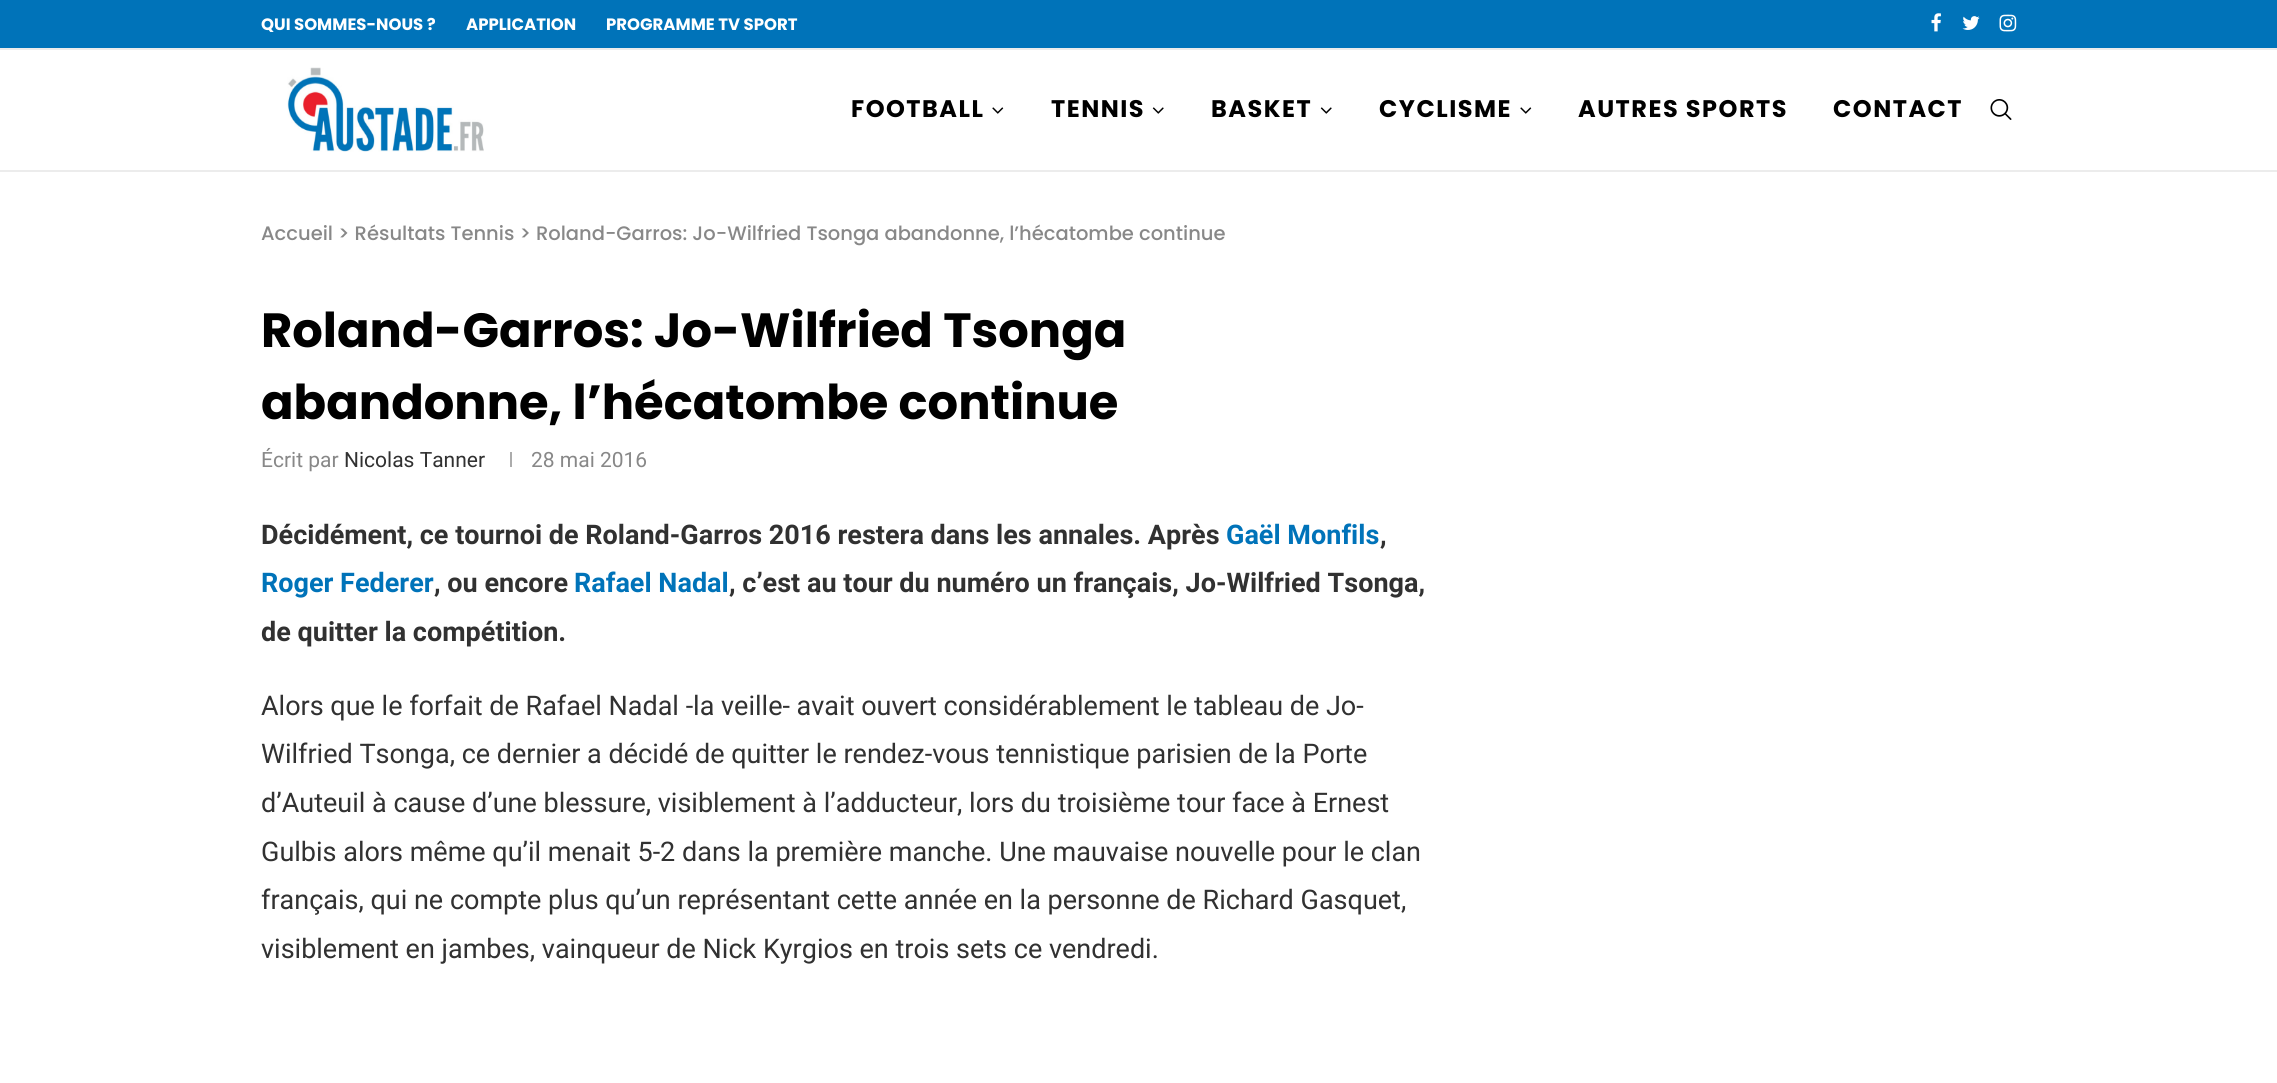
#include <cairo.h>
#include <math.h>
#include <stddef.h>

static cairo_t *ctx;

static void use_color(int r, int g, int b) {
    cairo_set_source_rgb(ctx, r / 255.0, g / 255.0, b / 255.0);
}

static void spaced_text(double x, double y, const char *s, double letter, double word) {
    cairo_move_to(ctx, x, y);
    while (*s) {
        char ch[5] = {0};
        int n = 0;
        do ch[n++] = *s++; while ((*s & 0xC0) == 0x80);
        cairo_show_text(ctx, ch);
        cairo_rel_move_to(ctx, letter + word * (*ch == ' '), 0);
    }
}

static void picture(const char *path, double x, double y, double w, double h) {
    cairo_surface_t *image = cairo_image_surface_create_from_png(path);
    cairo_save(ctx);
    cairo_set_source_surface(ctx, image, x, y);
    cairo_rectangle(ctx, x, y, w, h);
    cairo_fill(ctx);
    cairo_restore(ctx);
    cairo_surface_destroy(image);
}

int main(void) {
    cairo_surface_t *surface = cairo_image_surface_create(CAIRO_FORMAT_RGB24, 2277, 1083);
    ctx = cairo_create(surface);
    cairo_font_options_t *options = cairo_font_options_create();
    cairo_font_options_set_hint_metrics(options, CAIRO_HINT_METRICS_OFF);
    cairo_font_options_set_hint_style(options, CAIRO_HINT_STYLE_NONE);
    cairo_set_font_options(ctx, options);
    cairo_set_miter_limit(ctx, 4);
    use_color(255, 255, 255);
    cairo_paint(ctx);
    use_color(0, 115, 185);
    cairo_rectangle(ctx, 0, 0, 2277, 48);
    cairo_fill(ctx);
    cairo_select_font_face(ctx, "Poppins", CAIRO_FONT_SLANT_NORMAL, CAIRO_FONT_WEIGHT_BOLD);
    cairo_set_font_size(ctx, 16.5);
    use_color(255, 255, 255);
    cairo_move_to(ctx, 261, 30);
    cairo_show_text(ctx, "QUI SOMMES-NOUS ?");
    cairo_move_to(ctx, 466, 30);
    cairo_show_text(ctx, "APPLICATION");
    cairo_move_to(ctx, 606, 30);
    cairo_show_text(ctx, "PROGRAMME TV SPORT");
    picture("img1.png", 1931, 13, 10, 19);
    picture("img2.png", 1962, 16, 18, 14);
    picture("img3.png", 1999, 14, 18, 18);
    use_color(236, 236, 236);
    cairo_rectangle(ctx, 0, 48, 2277, 2);
    cairo_fill(ctx);
    cairo_rectangle(ctx, 0, 170, 2277, 2);
    cairo_fill(ctx);
    picture("img4.png", 287, 67, 197, 85);
    cairo_set_font_size(ctx, 24);
    use_color(0, 0, 0);
    spaced_text(851, 117, "FOOTBALL", 1.5, 0);
    picture("img5.png", 992, 107, 12, 7);
    spaced_text(1051, 117, "TENNIS", 1.5, 0);
    picture("img6.png", 1152, 107, 12, 7);
    spaced_text(1211, 117, "BASKET", 1.5, 0);
    picture("img6.png", 1320, 107, 12, 7);
    spaced_text(1379, 117, "CYCLISME", 1.5, 0);
    picture("img5.png", 1520, 107, 12, 7);
    spaced_text(1578, 117, "AUTRES SPORTS", 1.5, 0);
    spaced_text(1833, 117, "CONTACT", 1.5, 0);
    picture("img7.png", 1990, 99, 22, 21);
    cairo_select_font_face(ctx, "Poppins Medium", CAIRO_FONT_SLANT_NORMAL, CAIRO_FONT_WEIGHT_NORMAL);
    cairo_set_font_size(ctx, 19.5);
    use_color(136, 136, 136);
    cairo_move_to(ctx, 261, 240);
    cairo_show_text(ctx, "Accueil > Résultats Tennis > Roland-Garros: Jo-Wilfried Tsonga abandonne, l’hécatombe continue");
    cairo_select_font_face(ctx, "Poppins", CAIRO_FONT_SLANT_NORMAL, CAIRO_FONT_WEIGHT_BOLD);
    cairo_set_font_size(ctx, 48);
    use_color(0, 0, 0);
    cairo_move_to(ctx, 261, 347);
    cairo_show_text(ctx, "Roland-Garros: Jo-Wilfried Tsonga");
    cairo_move_to(ctx, 261, 419);
    cairo_show_text(ctx, "abandonne, l’hécatombe continue");
    cairo_select_font_face(ctx, "Roboto", CAIRO_FONT_SLANT_NORMAL, CAIRO_FONT_WEIGHT_NORMAL);
    cairo_set_font_size(ctx, 21);
    use_color(136, 136, 136);
    cairo_move_to(ctx, 261, 467);
    cairo_show_text(ctx, "Écrit par");
    use_color(49, 49, 49);
    cairo_move_to(ctx, 344, 467);
    cairo_show_text(ctx, "Nicolas Tanner");
    use_color(172, 172, 172);
    cairo_rectangle(ctx, 510, 452, 2, 15);
    cairo_fill(ctx);
    use_color(136, 136, 136);
    cairo_move_to(ctx, 531, 467);
    cairo_show_text(ctx, "28 mai 2016");
    cairo_select_font_face(ctx, "Roboto", CAIRO_FONT_SLANT_NORMAL, CAIRO_FONT_WEIGHT_BOLD);
    cairo_set_font_size(ctx, 27);
    use_color(49, 49, 49);
    cairo_move_to(ctx, 261, 544);
    cairo_show_text(ctx, "Décidément, ce tournoi de Roland-Garros 2016 restera dans les annales. Après");
    use_color(0, 115, 185);
    cairo_move_to(ctx, 1226, 544);
    cairo_show_text(ctx, "Gaël Monfils");
    use_color(49, 49, 49);
    cairo_move_to(ctx, 1380, 544);
    cairo_show_text(ctx, ",");
    use_color(0, 115, 185);
    cairo_move_to(ctx, 261, 592);
    cairo_show_text(ctx, "Roger Federer");
    use_color(49, 49, 49);
    cairo_move_to(ctx, 434, 592);
    cairo_show_text(ctx, ", ou encore");
    use_color(0, 115, 185);
    cairo_move_to(ctx, 574, 592);
    cairo_show_text(ctx, "Rafael Nadal");
    use_color(49, 49, 49);
    cairo_move_to(ctx, 729, 592);
    cairo_show_text(ctx, ", c’est au tour du numéro un français, Jo-Wilfried Tsonga,");
    cairo_move_to(ctx, 261, 641);
    cairo_show_text(ctx, "de quitter la compétition.");
    cairo_select_font_face(ctx, "Roboto", CAIRO_FONT_SLANT_NORMAL, CAIRO_FONT_WEIGHT_NORMAL);
    cairo_move_to(ctx, 261, 715);
    cairo_show_text(ctx, "Alors que le forfait de Rafael Nadal -la veille- avait ouvert considérablement le tableau de Jo-");
    cairo_move_to(ctx, 261, 763);
    cairo_show_text(ctx, "Wilfried Tsonga, ce dernier a décidé de quitter le rendez-vous tennistique parisien de la Porte");
    cairo_move_to(ctx, 261, 812);
    cairo_show_text(ctx, "d’Auteuil à cause d’une blessure, visiblement à l’adducteur, lors du troisième tour face à Ernest");
    cairo_move_to(ctx, 261, 861);
    cairo_show_text(ctx, "Gulbis alors même qu’il menait 5-2 dans la première manche. Une mauvaise nouvelle pour le clan");
    cairo_move_to(ctx, 261, 909);
    cairo_show_text(ctx, "français, qui ne compte plus qu’un représentant cette année en la personne de Richard Gasquet,");
    cairo_move_to(ctx, 261, 958);
    cairo_show_text(ctx, "visiblement en jambes, vainqueur de Nick Kyrgios en trois sets ce vendredi.");
    cairo_surface_write_to_png(surface, "result.png");
    cairo_font_options_destroy(options);
    cairo_destroy(ctx);
    cairo_surface_destroy(surface);
    return 0;
}
